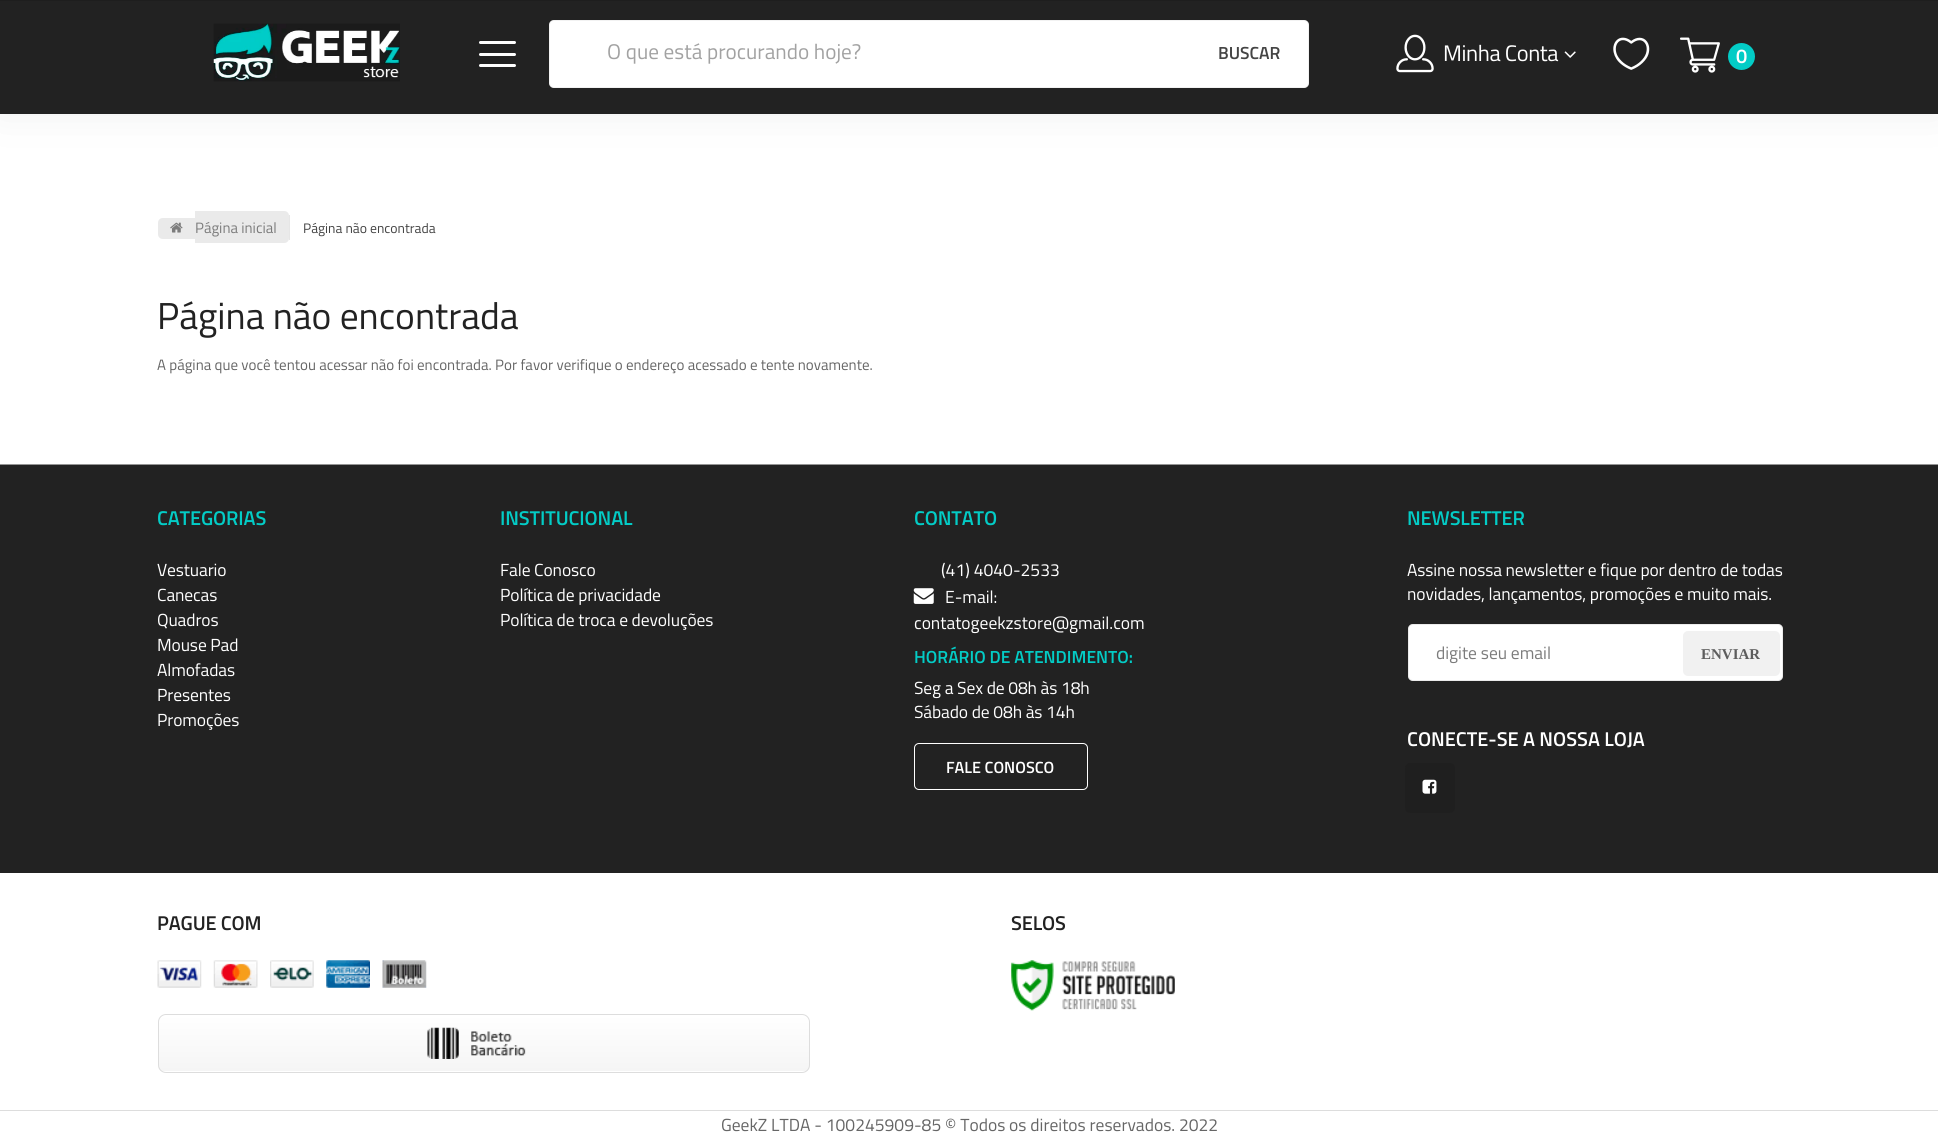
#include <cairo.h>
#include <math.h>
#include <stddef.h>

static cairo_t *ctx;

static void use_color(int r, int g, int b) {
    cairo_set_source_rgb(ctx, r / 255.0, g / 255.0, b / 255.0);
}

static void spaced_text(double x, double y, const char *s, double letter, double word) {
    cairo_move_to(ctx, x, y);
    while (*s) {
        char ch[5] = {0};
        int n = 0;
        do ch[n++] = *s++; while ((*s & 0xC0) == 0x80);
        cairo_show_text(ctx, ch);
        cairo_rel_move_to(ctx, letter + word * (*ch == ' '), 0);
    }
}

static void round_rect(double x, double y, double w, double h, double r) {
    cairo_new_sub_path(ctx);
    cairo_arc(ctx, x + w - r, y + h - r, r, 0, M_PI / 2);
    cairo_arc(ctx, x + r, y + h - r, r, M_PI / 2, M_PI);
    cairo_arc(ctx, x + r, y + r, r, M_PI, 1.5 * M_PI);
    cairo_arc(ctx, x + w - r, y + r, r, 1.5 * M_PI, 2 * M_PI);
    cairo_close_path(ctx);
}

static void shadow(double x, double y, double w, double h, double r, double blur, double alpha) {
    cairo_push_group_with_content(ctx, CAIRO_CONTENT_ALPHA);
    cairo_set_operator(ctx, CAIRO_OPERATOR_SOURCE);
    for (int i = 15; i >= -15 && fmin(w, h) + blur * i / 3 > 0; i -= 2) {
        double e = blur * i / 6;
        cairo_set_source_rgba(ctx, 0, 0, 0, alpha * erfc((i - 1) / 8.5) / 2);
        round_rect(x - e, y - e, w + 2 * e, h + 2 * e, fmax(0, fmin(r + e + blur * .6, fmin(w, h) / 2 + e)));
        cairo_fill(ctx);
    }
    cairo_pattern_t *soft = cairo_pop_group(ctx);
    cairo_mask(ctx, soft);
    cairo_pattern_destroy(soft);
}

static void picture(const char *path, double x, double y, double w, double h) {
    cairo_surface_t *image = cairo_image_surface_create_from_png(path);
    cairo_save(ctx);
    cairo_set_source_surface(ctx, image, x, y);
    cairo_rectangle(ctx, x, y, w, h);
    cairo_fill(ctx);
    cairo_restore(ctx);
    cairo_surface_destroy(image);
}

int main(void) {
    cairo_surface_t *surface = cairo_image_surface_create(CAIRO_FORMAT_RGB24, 1938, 1145);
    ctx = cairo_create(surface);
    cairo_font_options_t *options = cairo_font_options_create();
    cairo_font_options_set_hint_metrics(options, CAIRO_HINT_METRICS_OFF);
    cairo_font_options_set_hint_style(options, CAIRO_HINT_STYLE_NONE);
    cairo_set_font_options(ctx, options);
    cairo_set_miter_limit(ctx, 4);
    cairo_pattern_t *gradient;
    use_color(255, 255, 255);
    cairo_paint(ctx);
    use_color(74, 81, 81);
    shadow(0, 0, 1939, 113, 0, 19, 0.1);
    use_color(34, 34, 34);
    cairo_rectangle(ctx, 0, 1, 1938, 113);
    cairo_fill(ctx);
    use_color(30, 30, 30);
    cairo_rectangle(ctx, 0, 0, 1938, 1);
    cairo_fill(ctx);
    picture("img1.png", 213, 23, 187, 59);
    use_color(255, 255, 255);
    round_rect(479, 41, 37, 3, 1.5);
    cairo_fill(ctx);
    round_rect(479, 53, 37, 3, 1.5);
    cairo_fill(ctx);
    round_rect(479, 64, 37, 3, 1.5);
    cairo_fill(ctx);
    round_rect(549, 20, 760, 68, 5);
    cairo_fill(ctx);
    round_rect(549.5, 20.5, 759, 67, 4.5);
    cairo_set_source_rgba(ctx, 0.8, 0.8, 0.8, 0.25);
    cairo_set_line_width(ctx, 1);
    cairo_stroke(ctx);
    cairo_select_font_face(ctx, "Titillium Web", CAIRO_FONT_SLANT_NORMAL, CAIRO_FONT_WEIGHT_NORMAL);
    cairo_set_font_size(ctx, 21.25);
    use_color(162, 162, 162);
    cairo_move_to(ctx, 607, 59);
    cairo_show_text(ctx, "O que está procurando hoje?");
    cairo_select_font_face(ctx, "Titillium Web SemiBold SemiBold", CAIRO_FONT_SLANT_NORMAL, CAIRO_FONT_WEIGHT_NORMAL);
    cairo_set_font_size(ctx, 17.5);
    use_color(68, 68, 68);
    cairo_move_to(ctx, 1218, 59);
    cairo_show_text(ctx, "BUSCAR");
    picture("img2.png", 1396, 34, 38, 39);
    cairo_select_font_face(ctx, "Titillium Web", CAIRO_FONT_SLANT_NORMAL, CAIRO_FONT_WEIGHT_NORMAL);
    cairo_set_font_size(ctx, 22.5);
    use_color(255, 255, 255);
    spaced_text(1443, 61, "Minha Conta", -0.4, 0);
    picture("img3.png", 1564, 51, 12, 7);
    picture("img4.png", 1613, 37, 37, 33);
    picture("img5.png", 1680, 37, 40, 36);
    use_color(3, 204, 198);
    cairo_arc(ctx, 1741.5, 56.5, 13.5, 0, 2 * M_PI);
    cairo_fill(ctx);
    cairo_select_font_face(ctx, "Titillium Web SemiBold SemiBold", CAIRO_FONT_SLANT_NORMAL, CAIRO_FONT_WEIGHT_NORMAL);
    cairo_set_font_size(ctx, 20);
    use_color(255, 255, 255);
    cairo_move_to(ctx, 1736, 63);
    cairo_show_text(ctx, "0");
    use_color(234, 234, 234);
    cairo_new_path(ctx);
    cairo_move_to(ctx, 163, 218);
    cairo_line_to(ctx, 195, 218);
    cairo_line_to(ctx, 195, 239);
    cairo_line_to(ctx, 163, 239);
    cairo_curve_to(ctx, 160, 239, 158, 237, 158, 234);
    cairo_line_to(ctx, 158, 223);
    cairo_curve_to(ctx, 158, 220, 160, 218, 163, 218);
    cairo_close_path(ctx);
    cairo_fill(ctx);
    cairo_new_path(ctx);
    cairo_move_to(ctx, 195, 211);
    cairo_line_to(ctx, 284, 211);
    cairo_curve_to(ctx, 287, 211, 289, 213, 289, 216);
    cairo_line_to(ctx, 289, 238);
    cairo_curve_to(ctx, 289, 241, 287, 243, 284, 243);
    cairo_line_to(ctx, 195, 243);
    cairo_close_path(ctx);
    cairo_fill(ctx);
    picture("img6.png", 170, 222, 13, 11);
    cairo_select_font_face(ctx, "Titillium Web", CAIRO_FONT_SLANT_NORMAL, CAIRO_FONT_WEIGHT_NORMAL);
    cairo_set_font_size(ctx, 15);
    use_color(124, 124, 124);
    cairo_move_to(ctx, 195, 233);
    cairo_show_text(ctx, "Página inicial");
    use_color(230, 230, 230);
    cairo_rectangle(ctx, 289, 215, 1, 25);
    cairo_fill(ctx);
    cairo_set_font_size(ctx, 13.75);
    use_color(68, 68, 68);
    cairo_move_to(ctx, 303, 233);
    cairo_show_text(ctx, "Página não encontrada");
    cairo_set_font_size(ctx, 37.5);
    use_color(34, 34, 34);
    cairo_move_to(ctx, 157, 329);
    cairo_show_text(ctx, "Página não encontrada");
    cairo_set_font_size(ctx, 15);
    use_color(102, 102, 102);
    cairo_move_to(ctx, 157, 370);
    cairo_show_text(ctx, "A página que você tentou acessar não foi encontrada. Por favor verifique o endereço acessado e tente novamente.");
    use_color(34, 34, 34);
    cairo_rectangle(ctx, 0, 465, 1938, 408);
    cairo_fill(ctx);
    use_color(148, 148, 148);
    cairo_rectangle(ctx, 0, 464, 1938, 1);
    cairo_fill(ctx);
    cairo_select_font_face(ctx, "Titillium Web SemiBold SemiBold", CAIRO_FONT_SLANT_NORMAL, CAIRO_FONT_WEIGHT_NORMAL);
    cairo_set_font_size(ctx, 20);
    use_color(3, 204, 198);
    spaced_text(157, 525, "CATEGORIAS", -0.12, 0);
    cairo_select_font_face(ctx, "Titillium Web", CAIRO_FONT_SLANT_NORMAL, CAIRO_FONT_WEIGHT_NORMAL);
    cairo_set_font_size(ctx, 17.5);
    use_color(255, 255, 255);
    spaced_text(157, 576, "Vestuario", -0.12, 0);
    spaced_text(157, 601, "Canecas", -0.12, 0);
    spaced_text(157, 626, "Quadros", -0.12, 0);
    spaced_text(157, 651, "Mouse Pad", -0.12, 0);
    spaced_text(157, 676, "Almofadas", -0.12, 0);
    spaced_text(157, 701, "Presentes", -0.12, 0);
    spaced_text(157, 726, "Promoções", -0.12, 0);
    cairo_select_font_face(ctx, "Titillium Web SemiBold SemiBold", CAIRO_FONT_SLANT_NORMAL, CAIRO_FONT_WEIGHT_NORMAL);
    cairo_set_font_size(ctx, 20);
    use_color(3, 204, 198);
    spaced_text(500, 525, "INSTITUCIONAL", -0.12, 0);
    cairo_select_font_face(ctx, "Titillium Web", CAIRO_FONT_SLANT_NORMAL, CAIRO_FONT_WEIGHT_NORMAL);
    cairo_set_font_size(ctx, 17.5);
    use_color(255, 255, 255);
    spaced_text(500, 576, "Fale Conosco", -0.12, 0);
    spaced_text(500, 601, "Política de privacidade", -0.12, 0);
    spaced_text(500, 626, "Política de troca e devoluções", -0.12, 0);
    cairo_select_font_face(ctx, "Titillium Web SemiBold SemiBold", CAIRO_FONT_SLANT_NORMAL, CAIRO_FONT_WEIGHT_NORMAL);
    cairo_set_font_size(ctx, 20);
    use_color(3, 204, 198);
    spaced_text(914, 525, "CONTATO", -0.12, 0);
    cairo_select_font_face(ctx, "Titillium Web", CAIRO_FONT_SLANT_NORMAL, CAIRO_FONT_WEIGHT_NORMAL);
    cairo_set_font_size(ctx, 17.5);
    use_color(255, 255, 255);
    cairo_move_to(ctx, 941, 576);
    cairo_show_text(ctx, "(41) 4040-2533");
    picture("img7.png", 913, 588, 21, 16);
    cairo_move_to(ctx, 945, 603);
    cairo_show_text(ctx, "E-mail:");
    cairo_move_to(ctx, 914, 629);
    cairo_show_text(ctx, "contatogeekzstore@gmail.com");
    cairo_select_font_face(ctx, "Titillium Web SemiBold SemiBold", CAIRO_FONT_SLANT_NORMAL, CAIRO_FONT_WEIGHT_NORMAL);
    use_color(3, 204, 198);
    cairo_move_to(ctx, 914, 663);
    cairo_show_text(ctx, "HORÁRIO DE ATENDIMENTO:");
    cairo_select_font_face(ctx, "Titillium Web", CAIRO_FONT_SLANT_NORMAL, CAIRO_FONT_WEIGHT_NORMAL);
    use_color(255, 255, 255);
    spaced_text(914, 694, "Seg a Sex de 08h às 18h", -0.12, 0);
    spaced_text(914, 718, "Sábado de 08h às 14h", -0.12, 0);
    round_rect(914.5, 743.5, 173, 46, 4.5);
    cairo_stroke(ctx);
    cairo_select_font_face(ctx, "Titillium Web SemiBold SemiBold", CAIRO_FONT_SLANT_NORMAL, CAIRO_FONT_WEIGHT_NORMAL);
    cairo_set_font_size(ctx, 16.25);
    cairo_move_to(ctx, 946, 773);
    cairo_show_text(ctx, "FALE CONOSCO");
    cairo_set_font_size(ctx, 20);
    use_color(3, 204, 198);
    spaced_text(1407, 525, "NEWSLETTER", -0.12, 0);
    cairo_select_font_face(ctx, "Titillium Web", CAIRO_FONT_SLANT_NORMAL, CAIRO_FONT_WEIGHT_NORMAL);
    cairo_set_font_size(ctx, 17.5);
    use_color(255, 255, 255);
    spaced_text(1407, 576, "Assine nossa newsletter e fique por dentro de todas", -0.12, 0);
    spaced_text(1407, 600, "novidades, lançamentos, promoções e muito mais.", -0.12, 0);
    round_rect(1408, 624, 375, 57, 5);
    cairo_fill(ctx);
    round_rect(1408.5, 624.5, 374, 56, 4.5);
    cairo_set_source_rgba(ctx, 0.8, 0.8, 0.8, 0.38);
    cairo_stroke(ctx);
    use_color(124, 124, 124);
    cairo_move_to(ctx, 1436, 659);
    cairo_show_text(ctx, "digite seu email");
    use_color(241, 241, 241);
    round_rect(1683, 631, 97, 45, 5);
    cairo_fill(ctx);
    cairo_select_font_face(ctx, "Liberation Serif", CAIRO_FONT_SLANT_NORMAL, CAIRO_FONT_WEIGHT_BOLD);
    cairo_set_font_size(ctx, 15);
    use_color(93, 93, 93);
    cairo_move_to(ctx, 1701, 659);
    cairo_show_text(ctx, "ENVIAR");
    cairo_select_font_face(ctx, "Titillium Web SemiBold SemiBold", CAIRO_FONT_SLANT_NORMAL, CAIRO_FONT_WEIGHT_NORMAL);
    cairo_set_font_size(ctx, 20);
    use_color(255, 255, 255);
    cairo_move_to(ctx, 1407, 746);
    cairo_show_text(ctx, "CONECTE-SE A NOSSA LOJA");
    use_color(31, 31, 31);
    round_rect(1405, 763, 50, 50, 5);
    cairo_fill(ctx);
    picture("img8.png", 1422, 779, 15, 15);
    use_color(34, 34, 34);
    spaced_text(157, 930, "PAGUE COM", -0.12, 0);
    picture("img9.png", 157, 960, 45, 28);
    picture("img10.png", 213, 960, 45, 28);
    picture("img11.png", 270, 960, 44, 28);
    picture("img12.png", 326, 960, 44, 28);
    picture("img13.png", 382, 960, 45, 28);
    cairo_save(ctx);
    round_rect(158, 1014, 652, 59, 8);
    cairo_clip(ctx);
    gradient = cairo_pattern_create_linear(484, 1015, 484, 1071);
    cairo_pattern_add_color_stop_rgba(gradient, 0, 1, 1, 1, 1);
    cairo_pattern_add_color_stop_rgba(gradient, 1, 0.961, 0.961, 0.961, 1);
    cairo_set_source(ctx, gradient);
    cairo_pattern_destroy(gradient);
    cairo_rectangle(ctx, 158, 1015, 652, 56);
    cairo_fill(ctx);
    cairo_restore(ctx);
    round_rect(158.5, 1014.5, 651, 58, 7.5);
    use_color(221, 221, 221);
    cairo_stroke(ctx);
    picture("img14.png", 427, 1027, 99, 32);
    use_color(34, 34, 34);
    spaced_text(1011, 930, "SELOS", -0.12, 0);
    picture("img15.png", 1011, 960, 164, 51);
    use_color(221, 221, 221);
    cairo_rectangle(ctx, 0, 1110, 1938, 1);
    cairo_fill(ctx);
    cairo_select_font_face(ctx, "Titillium Web", CAIRO_FONT_SLANT_NORMAL, CAIRO_FONT_WEIGHT_NORMAL);
    cairo_set_font_size(ctx, 17.5);
    use_color(102, 102, 102);
    cairo_move_to(ctx, 721, 1131);
    cairo_show_text(ctx, "GeekZ LTDA - 100245909-85 © Todos os direitos reservados. 2022");
    cairo_surface_write_to_png(surface, "result.png");
    cairo_font_options_destroy(options);
    cairo_destroy(ctx);
    cairo_surface_destroy(surface);
    return 0;
}
